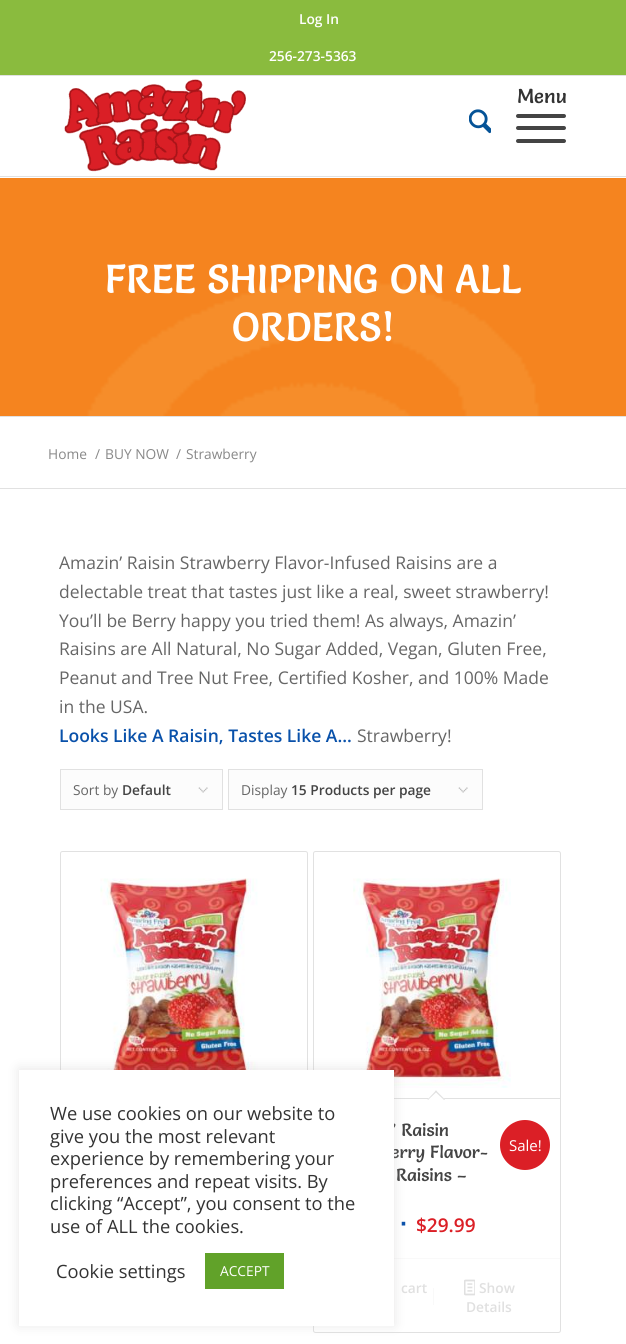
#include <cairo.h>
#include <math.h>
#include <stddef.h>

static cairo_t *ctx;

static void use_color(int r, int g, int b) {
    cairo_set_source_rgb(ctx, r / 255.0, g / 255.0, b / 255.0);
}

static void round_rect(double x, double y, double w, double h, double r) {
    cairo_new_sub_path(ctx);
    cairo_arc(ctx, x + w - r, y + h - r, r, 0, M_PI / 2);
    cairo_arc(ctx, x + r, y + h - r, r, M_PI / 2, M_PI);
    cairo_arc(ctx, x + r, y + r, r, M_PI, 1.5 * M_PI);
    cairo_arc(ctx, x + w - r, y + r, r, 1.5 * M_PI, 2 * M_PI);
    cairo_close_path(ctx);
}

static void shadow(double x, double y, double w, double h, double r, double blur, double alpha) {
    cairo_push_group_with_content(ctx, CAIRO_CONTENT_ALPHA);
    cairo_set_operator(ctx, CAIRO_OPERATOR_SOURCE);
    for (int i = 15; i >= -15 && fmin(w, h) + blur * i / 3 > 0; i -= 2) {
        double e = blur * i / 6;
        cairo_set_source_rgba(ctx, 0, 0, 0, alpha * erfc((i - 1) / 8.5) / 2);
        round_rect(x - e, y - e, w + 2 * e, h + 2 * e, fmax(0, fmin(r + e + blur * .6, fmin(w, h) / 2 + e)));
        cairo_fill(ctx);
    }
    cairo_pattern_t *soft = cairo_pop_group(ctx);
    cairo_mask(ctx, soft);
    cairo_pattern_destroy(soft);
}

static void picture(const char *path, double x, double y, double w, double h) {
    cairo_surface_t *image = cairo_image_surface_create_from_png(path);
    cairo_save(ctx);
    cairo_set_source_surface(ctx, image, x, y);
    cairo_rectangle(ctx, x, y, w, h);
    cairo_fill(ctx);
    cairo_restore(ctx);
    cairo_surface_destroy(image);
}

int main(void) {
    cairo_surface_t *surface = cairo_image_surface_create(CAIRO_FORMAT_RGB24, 626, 1344);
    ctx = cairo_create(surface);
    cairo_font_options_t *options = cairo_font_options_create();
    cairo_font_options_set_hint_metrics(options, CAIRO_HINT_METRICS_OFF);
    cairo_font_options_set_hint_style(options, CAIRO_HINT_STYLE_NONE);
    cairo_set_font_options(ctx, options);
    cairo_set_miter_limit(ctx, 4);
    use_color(255, 255, 255);
    cairo_paint(ctx);
    use_color(138, 187, 62);
    cairo_rectangle(ctx, 0, 0, 626, 75);
    cairo_fill(ctx);
    use_color(225, 225, 225);
    cairo_rectangle(ctx, 0, 75, 626, 1);
    cairo_fill(ctx);
    cairo_select_font_face(ctx, "Open Sans SemiBold", CAIRO_FONT_SLANT_NORMAL, CAIRO_FONT_WEIGHT_NORMAL);
    cairo_set_font_size(ctx, 13.75);
    use_color(255, 255, 255);
    cairo_move_to(ctx, 299, 24);
    cairo_show_text(ctx, "Log In");
    cairo_move_to(ctx, 269, 61);
    cairo_show_text(ctx, "256-273-5363");
    use_color(225, 225, 225);
    cairo_rectangle(ctx, 0, 176, 626, 1);
    cairo_fill(ctx);
    picture("img1.png", 64, 79, 182, 93);
    cairo_select_font_face(ctx, "Salsa", CAIRO_FONT_SLANT_NORMAL, CAIRO_FONT_WEIGHT_NORMAL);
    cairo_set_font_size(ctx, 20);
    use_color(51, 51, 51);
    cairo_move_to(ctx, 517, 103);
    cairo_show_text(ctx, "Menu");
    use_color(68, 68, 68);
    round_rect(516, 126, 50, 4, 2);
    cairo_fill(ctx);
    round_rect(516, 114, 50, 4, 2);
    cairo_fill(ctx);
    round_rect(516, 139, 50, 4, 2);
    cairo_fill(ctx);
    picture("img2.png", 469, 109, 22, 25);
    picture("img3.png", 0, 178, 626, 238);
    cairo_set_font_size(ctx, 40);
    use_color(255, 255, 255);
    cairo_move_to(ctx, 105, 293);
    cairo_show_text(ctx, "FREE SHIPPING ON ALL");
    cairo_move_to(ctx, 232, 341);
    cairo_show_text(ctx, "ORDERS!");
    use_color(225, 225, 225);
    cairo_rectangle(ctx, 0, 416, 626, 1);
    cairo_fill(ctx);
    cairo_select_font_face(ctx, "Open Sans", CAIRO_FONT_SLANT_NORMAL, CAIRO_FONT_WEIGHT_NORMAL);
    cairo_set_font_size(ctx, 13.75);
    use_color(136, 136, 136);
    cairo_move_to(ctx, 48, 459);
    cairo_show_text(ctx, "Home");
    cairo_move_to(ctx, 95, 459);
    cairo_show_text(ctx, "/");
    cairo_move_to(ctx, 105, 459);
    cairo_show_text(ctx, "BUY NOW");
    cairo_move_to(ctx, 176, 459);
    cairo_show_text(ctx, "/");
    cairo_move_to(ctx, 186, 459);
    cairo_show_text(ctx, "Strawberry");
    use_color(225, 225, 225);
    cairo_rectangle(ctx, 0, 488, 626, 1);
    cairo_fill(ctx);
    cairo_set_font_size(ctx, 17.5);
    use_color(102, 102, 102);
    cairo_move_to(ctx, 59, 569);
    cairo_show_text(ctx, "Amazin’ Raisin Strawberry Flavor-Infused Raisins are a");
    cairo_move_to(ctx, 59, 598);
    cairo_show_text(ctx, "delectable treat that tastes just like a real, sweet strawberry!");
    cairo_move_to(ctx, 59, 627);
    cairo_show_text(ctx, "You’ll be Berry happy you tried them! As always, Amazin’");
    cairo_move_to(ctx, 59, 655);
    cairo_show_text(ctx, "Raisins are All Natural, No Sugar Added, Vegan, Gluten Free,");
    cairo_move_to(ctx, 59, 684);
    cairo_show_text(ctx, "Peanut and Tree Nut Free, Certified Kosher, and 100% Made");
    cairo_move_to(ctx, 59, 713);
    cairo_show_text(ctx, "in the USA.");
    cairo_select_font_face(ctx, "Open Sans SemiBold", CAIRO_FONT_SLANT_NORMAL, CAIRO_FONT_WEIGHT_NORMAL);
    use_color(9, 81, 170);
    cairo_move_to(ctx, 59, 742);
    cairo_show_text(ctx, "Looks Like A Raisin, Tastes Like A…");
    cairo_select_font_face(ctx, "Open Sans", CAIRO_FONT_SLANT_NORMAL, CAIRO_FONT_WEIGHT_NORMAL);
    use_color(102, 102, 102);
    cairo_move_to(ctx, 357, 742);
    cairo_show_text(ctx, "Strawberry!");
    use_color(252, 252, 252);
    cairo_rectangle(ctx, 61, 770, 161, 39);
    cairo_fill(ctx);
    picture("img4.png", 198, 787, 10, 6);
    cairo_rectangle(ctx, 60.5, 769.5, 162, 40);
    use_color(225, 225, 225);
    cairo_set_line_width(ctx, 1);
    cairo_stroke(ctx);
    cairo_set_font_size(ctx, 13.75);
    use_color(102, 102, 102);
    cairo_move_to(ctx, 73, 795);
    cairo_show_text(ctx, "Sort by");
    cairo_select_font_face(ctx, "Open Sans SemiBold", CAIRO_FONT_SLANT_NORMAL, CAIRO_FONT_WEIGHT_NORMAL);
    use_color(68, 68, 68);
    cairo_move_to(ctx, 122, 795);
    cairo_show_text(ctx, "Default");
    use_color(252, 252, 252);
    cairo_rectangle(ctx, 229, 770, 253, 39);
    cairo_fill(ctx);
    picture("img4.png", 458, 787, 10, 6);
    cairo_rectangle(ctx, 228.5, 769.5, 254, 40);
    use_color(225, 225, 225);
    cairo_stroke(ctx);
    cairo_select_font_face(ctx, "Open Sans", CAIRO_FONT_SLANT_NORMAL, CAIRO_FONT_WEIGHT_NORMAL);
    use_color(102, 102, 102);
    cairo_move_to(ctx, 241, 795);
    cairo_show_text(ctx, "Display");
    cairo_select_font_face(ctx, "Open Sans SemiBold", CAIRO_FONT_SLANT_NORMAL, CAIRO_FONT_WEIGHT_NORMAL);
    use_color(68, 68, 68);
    cairo_move_to(ctx, 291, 795);
    cairo_show_text(ctx, "15 Products per page");
    round_rect(60.5, 851.5, 247, 458, 2);
    use_color(225, 225, 225);
    cairo_stroke(ctx);
    picture("img5.png", 100, 878, 158, 192);
    round_rect(313.5, 851.5, 247, 481, 2);
    cairo_stroke(ctx);
    picture("img6.png", 353, 878, 158, 210);
    cairo_rectangle(ctx, 394, 1098, 166, 1);
    cairo_fill(ctx);
    use_color(255, 255, 255);
    cairo_new_path(ctx);
    cairo_move_to(ctx, 436, 1090.5);
    cairo_line_to(ctx, 445, 1099.5);
    cairo_line_to(ctx, 436, 1108);
    cairo_line_to(ctx, 427.5, 1099.5);
    cairo_close_path(ctx);
    cairo_fill(ctx);
    use_color(225, 225, 225);
    cairo_new_path(ctx);
    cairo_move_to(ctx, 436, 1090.5);
    cairo_line_to(ctx, 445, 1099.5);
    cairo_line_to(ctx, 444, 1100);
    cairo_line_to(ctx, 435, 1091.5);
    cairo_close_path(ctx);
    cairo_fill(ctx);
    cairo_new_path(ctx);
    cairo_move_to(ctx, 436, 1090.5);
    cairo_line_to(ctx, 437, 1091.5);
    cairo_line_to(ctx, 428, 1100);
    cairo_line_to(ctx, 427.5, 1099.5);
    cairo_close_path(ctx);
    cairo_fill(ctx);
    cairo_select_font_face(ctx, "Salsa", CAIRO_FONT_SLANT_NORMAL, CAIRO_FONT_WEIGHT_NORMAL);
    cairo_set_font_size(ctx, 17.5);
    use_color(68, 68, 68);
    cairo_move_to(ctx, 391, 1136);
    cairo_show_text(ctx, "’ Raisin");
    cairo_move_to(ctx, 391, 1158);
    cairo_show_text(ctx, "erry Flavor-");
    cairo_move_to(ctx, 396, 1181);
    cairo_show_text(ctx, "Raisins –");
    use_color(219, 31, 38);
    cairo_new_path(ctx);
    cairo_arc(ctx, 525, 1145, 25, 0, 2 * M_PI);
    cairo_fill(ctx);
    cairo_select_font_face(ctx, "Open Sans", CAIRO_FONT_SLANT_NORMAL, CAIRO_FONT_WEIGHT_NORMAL);
    cairo_set_font_size(ctx, 15);
    use_color(255, 255, 255);
    cairo_move_to(ctx, 509, 1151);
    cairo_show_text(ctx, "Sale!");
    cairo_select_font_face(ctx, "Liberation Sans", CAIRO_FONT_SLANT_NORMAL, CAIRO_FONT_WEIGHT_BOLD);
    cairo_set_font_size(ctx, 25);
    use_color(9, 81, 170);
    cairo_move_to(ctx, 400, 1232);
    cairo_show_text(ctx, "∙");
    cairo_select_font_face(ctx, "Open Sans SemiBold", CAIRO_FONT_SLANT_NORMAL, CAIRO_FONT_WEIGHT_NORMAL);
    cairo_set_font_size(ctx, 19);
    use_color(219, 31, 38);
    cairo_move_to(ctx, 416, 1232);
    cairo_show_text(ctx, "$29.99");
    use_color(249, 249, 249);
    cairo_rectangle(ctx, 394, 1258, 166, 1);
    cairo_fill(ctx);
    cairo_set_font_size(ctx, 13.75);
    use_color(224, 224, 224);
    cairo_move_to(ctx, 401, 1293);
    cairo_show_text(ctx, "cart");
    use_color(249, 249, 249);
    cairo_rectangle(ctx, 433, 1288, 1, 17);
    cairo_fill(ctx);
    picture("img7.png", 464, 1279, 11, 17);
    use_color(224, 224, 224);
    cairo_move_to(ctx, 479, 1293);
    cairo_show_text(ctx, "Show");
    cairo_move_to(ctx, 466, 1312);
    cairo_show_text(ctx, "Details");
    use_color(172, 171, 171);
    shadow(19, 1069, 375, 256, 0, 6, 0.3);
    use_color(255, 255, 255);
    cairo_rectangle(ctx, 19, 1070, 375, 256);
    cairo_fill(ctx);
    cairo_select_font_face(ctx, "Open Sans", CAIRO_FONT_SLANT_NORMAL, CAIRO_FONT_WEIGHT_NORMAL);
    cairo_set_font_size(ctx, 18.3);
    use_color(51, 51, 51);
    cairo_move_to(ctx, 50, 1120);
    cairo_show_text(ctx, "We use cookies on our website to");
    cairo_move_to(ctx, 50, 1143);
    cairo_show_text(ctx, "give you the most relevant");
    cairo_move_to(ctx, 50, 1165);
    cairo_show_text(ctx, "experience by remembering your");
    cairo_move_to(ctx, 50, 1188);
    cairo_show_text(ctx, "preferences and repeat visits. By");
    cairo_move_to(ctx, 50, 1210);
    cairo_show_text(ctx, "clicking “Accept”, you consent to the");
    cairo_move_to(ctx, 50, 1233);
    cairo_show_text(ctx, "use of ALL the cookies.");
    cairo_move_to(ctx, 56, 1278);
    cairo_show_text(ctx, "Cookie settings");
    use_color(97, 162, 41);
    cairo_rectangle(ctx, 205, 1253, 79, 36);
    cairo_fill(ctx);
    cairo_set_font_size(ctx, 13.75);
    use_color(255, 255, 255);
    cairo_move_to(ctx, 220, 1276);
    cairo_show_text(ctx, "ACCEPT");
    cairo_surface_write_to_png(surface, "result.png");
    cairo_font_options_destroy(options);
    cairo_destroy(ctx);
    cairo_surface_destroy(surface);
    return 0;
}
